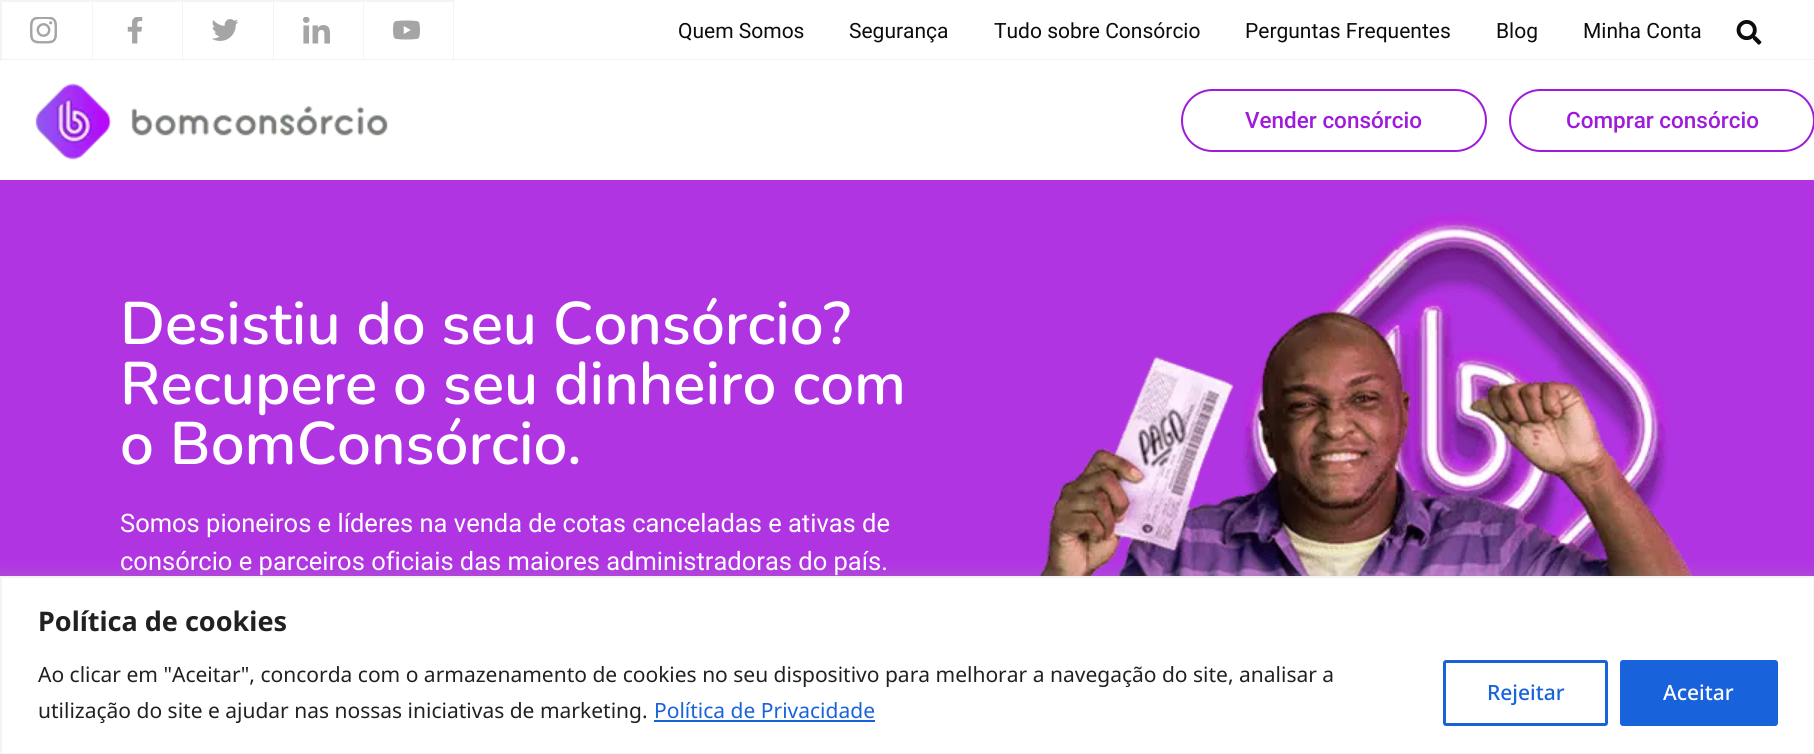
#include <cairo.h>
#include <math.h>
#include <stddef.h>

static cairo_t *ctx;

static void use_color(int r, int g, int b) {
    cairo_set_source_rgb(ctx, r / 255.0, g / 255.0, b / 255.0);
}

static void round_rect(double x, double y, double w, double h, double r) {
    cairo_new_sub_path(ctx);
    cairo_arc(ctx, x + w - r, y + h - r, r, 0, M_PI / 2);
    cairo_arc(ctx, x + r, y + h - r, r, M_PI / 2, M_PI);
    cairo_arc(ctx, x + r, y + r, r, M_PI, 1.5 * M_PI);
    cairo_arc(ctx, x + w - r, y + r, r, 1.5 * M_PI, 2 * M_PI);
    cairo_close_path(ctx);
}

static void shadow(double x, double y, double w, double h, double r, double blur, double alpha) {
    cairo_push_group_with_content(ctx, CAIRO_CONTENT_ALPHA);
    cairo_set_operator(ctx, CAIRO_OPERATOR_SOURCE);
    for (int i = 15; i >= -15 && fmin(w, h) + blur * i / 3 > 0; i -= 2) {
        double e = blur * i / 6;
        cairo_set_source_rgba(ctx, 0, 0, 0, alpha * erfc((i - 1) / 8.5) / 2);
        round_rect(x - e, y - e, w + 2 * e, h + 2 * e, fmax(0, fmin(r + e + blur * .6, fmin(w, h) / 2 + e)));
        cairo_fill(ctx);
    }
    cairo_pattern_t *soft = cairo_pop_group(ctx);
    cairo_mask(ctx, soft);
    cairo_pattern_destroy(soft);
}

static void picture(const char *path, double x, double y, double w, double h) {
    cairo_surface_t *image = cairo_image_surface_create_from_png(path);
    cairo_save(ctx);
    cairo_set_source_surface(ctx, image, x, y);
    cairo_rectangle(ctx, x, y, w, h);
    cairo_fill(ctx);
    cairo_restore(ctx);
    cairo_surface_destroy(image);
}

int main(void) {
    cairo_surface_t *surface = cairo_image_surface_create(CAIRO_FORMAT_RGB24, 1814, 754);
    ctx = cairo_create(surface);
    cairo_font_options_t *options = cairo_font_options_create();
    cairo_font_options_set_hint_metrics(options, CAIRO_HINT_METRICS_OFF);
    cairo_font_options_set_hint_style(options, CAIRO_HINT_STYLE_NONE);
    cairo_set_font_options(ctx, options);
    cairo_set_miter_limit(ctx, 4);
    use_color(255, 255, 255);
    cairo_paint(ctx);
    use_color(244, 244, 244);
    cairo_rectangle(ctx, 0, 59, 1814, 1);
    cairo_fill(ctx);
    cairo_new_path(ctx);
    cairo_move_to(ctx, 0, 0);
    cairo_line_to(ctx, 92, 0);
    cairo_line_to(ctx, 92, 2);
    cairo_line_to(ctx, 2, 2);
    cairo_close_path(ctx);
    cairo_fill(ctx);
    cairo_set_source_rgba(ctx, 0.478, 0.478, 0.478, 0.08);
    cairo_new_path(ctx);
    cairo_move_to(ctx, 0, 68);
    cairo_line_to(ctx, 0, 0);
    cairo_line_to(ctx, 2, 2);
    cairo_line_to(ctx, 2, 68);
    cairo_close_path(ctx);
    cairo_fill(ctx);
    picture("img1.png", 30, 17, 27, 27);
    use_color(244, 244, 244);
    cairo_new_path(ctx);
    cairo_move_to(ctx, 92, 0);
    cairo_line_to(ctx, 182, 0);
    cairo_line_to(ctx, 182, 2);
    cairo_line_to(ctx, 93, 2);
    cairo_close_path(ctx);
    cairo_fill(ctx);
    cairo_set_source_rgba(ctx, 0.478, 0.478, 0.478, 0.08);
    cairo_new_path(ctx);
    cairo_move_to(ctx, 92, 68);
    cairo_line_to(ctx, 92, 0);
    cairo_line_to(ctx, 93, 2);
    cairo_line_to(ctx, 93, 68);
    cairo_close_path(ctx);
    cairo_fill(ctx);
    picture("img2.png", 127, 17, 16, 27);
    use_color(244, 244, 244);
    cairo_new_path(ctx);
    cairo_move_to(ctx, 182, 0);
    cairo_line_to(ctx, 273, 0);
    cairo_line_to(ctx, 273, 2);
    cairo_line_to(ctx, 183, 2);
    cairo_close_path(ctx);
    cairo_fill(ctx);
    cairo_set_source_rgba(ctx, 0.478, 0.478, 0.478, 0.08);
    cairo_new_path(ctx);
    cairo_move_to(ctx, 182, 68);
    cairo_line_to(ctx, 182, 0);
    cairo_line_to(ctx, 183, 2);
    cairo_line_to(ctx, 183, 68);
    cairo_close_path(ctx);
    cairo_fill(ctx);
    picture("img3.png", 212, 19, 27, 22);
    use_color(244, 244, 244);
    cairo_new_path(ctx);
    cairo_move_to(ctx, 273, 0);
    cairo_line_to(ctx, 363, 0);
    cairo_line_to(ctx, 363, 2);
    cairo_line_to(ctx, 274, 2);
    cairo_close_path(ctx);
    cairo_fill(ctx);
    cairo_set_source_rgba(ctx, 0.478, 0.478, 0.478, 0.08);
    cairo_new_path(ctx);
    cairo_move_to(ctx, 273, 68);
    cairo_line_to(ctx, 273, 0);
    cairo_line_to(ctx, 274, 2);
    cairo_line_to(ctx, 274, 68);
    cairo_close_path(ctx);
    cairo_fill(ctx);
    picture("img4.png", 303, 17, 27, 27);
    use_color(244, 244, 244);
    cairo_new_path(ctx);
    cairo_move_to(ctx, 363, 0);
    cairo_line_to(ctx, 454, 0);
    cairo_line_to(ctx, 453, 2);
    cairo_line_to(ctx, 364, 2);
    cairo_close_path(ctx);
    cairo_fill(ctx);
    cairo_set_source_rgba(ctx, 0.478, 0.478, 0.478, 0.08);
    cairo_new_path(ctx);
    cairo_move_to(ctx, 454, 0);
    cairo_line_to(ctx, 454, 68);
    cairo_line_to(ctx, 453, 68);
    cairo_line_to(ctx, 453, 2);
    cairo_close_path(ctx);
    cairo_fill(ctx);
    cairo_new_path(ctx);
    cairo_move_to(ctx, 363, 68);
    cairo_line_to(ctx, 363, 0);
    cairo_line_to(ctx, 364, 2);
    cairo_line_to(ctx, 364, 68);
    cairo_close_path(ctx);
    cairo_fill(ctx);
    picture("img5.png", 393, 20, 27, 20);
    cairo_select_font_face(ctx, "Roboto", CAIRO_FONT_SLANT_NORMAL, CAIRO_FONT_WEIGHT_NORMAL);
    cairo_set_font_size(ctx, 21);
    use_color(12, 12, 12);
    cairo_move_to(ctx, 678, 38);
    cairo_show_text(ctx, "Quem Somos");
    cairo_move_to(ctx, 849, 38);
    cairo_show_text(ctx, "Segurança");
    cairo_move_to(ctx, 994, 38);
    cairo_show_text(ctx, "Tudo sobre Consórcio");
    cairo_move_to(ctx, 1245, 38);
    cairo_show_text(ctx, "Perguntas Frequentes");
    cairo_move_to(ctx, 1496, 38);
    cairo_show_text(ctx, "Blog");
    cairo_move_to(ctx, 1583, 38);
    cairo_show_text(ctx, "Minha Conta");
    picture("img6.png", 1736, 20, 26, 25);
    use_color(255, 255, 255);
    cairo_rectangle(ctx, 0, 60, 454, 8);
    cairo_fill(ctx);
    picture("img7.png", 35, 83, 353, 77);
    round_rect(1182, 90, 304, 61, 30.5);
    use_color(158, 27, 219);
    cairo_stroke(ctx);
    cairo_select_font_face(ctx, "Roboto Medium", CAIRO_FONT_SLANT_NORMAL, CAIRO_FONT_WEIGHT_NORMAL);
    cairo_set_font_size(ctx, 22.5);
    cairo_move_to(ctx, 1245, 128);
    cairo_show_text(ctx, "Vender consórcio");
    round_rect(1510, 90, 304, 61, 30.5);
    cairo_stroke(ctx);
    cairo_move_to(ctx, 1566, 128);
    cairo_show_text(ctx, "Comprar consórcio");
    use_color(177, 52, 227);
    cairo_rectangle(ctx, 0, 180, 1814, 396);
    cairo_fill(ctx);
    cairo_select_font_face(ctx, "Nunito SemiBold", CAIRO_FONT_SLANT_NORMAL, CAIRO_FONT_WEIGHT_NORMAL);
    cairo_set_font_size(ctx, 60);
    use_color(255, 255, 255);
    cairo_move_to(ctx, 120, 344);
    cairo_show_text(ctx, "Desistiu do seu Consórcio?");
    cairo_move_to(ctx, 120, 404);
    cairo_show_text(ctx, "Recupere o seu dinheiro com");
    cairo_move_to(ctx, 120, 464);
    cairo_show_text(ctx, "o BomConsórcio.");
    cairo_select_font_face(ctx, "Roboto", CAIRO_FONT_SLANT_NORMAL, CAIRO_FONT_WEIGHT_NORMAL);
    cairo_set_font_size(ctx, 25.5);
    cairo_move_to(ctx, 120, 532);
    cairo_show_text(ctx, "Somos pioneiros e líderes na venda de cotas canceladas e ativas de");
    cairo_move_to(ctx, 120, 570);
    cairo_show_text(ctx, "consórcio e parceiros oficiais das maiores administradoras do país.");
    picture("img8.png", 1039, 214, 654, 362);
    use_color(172, 171, 171);
    shadow(0, 575, 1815, 178, 0, 7.5, 0.3);
    use_color(255, 255, 255);
    cairo_rectangle(ctx, 1, 577, 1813, 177);
    cairo_fill_preserve(ctx);
    use_color(244, 244, 244);
    cairo_stroke(ctx);
    cairo_select_font_face(ctx, "Noto Sans", CAIRO_FONT_SLANT_NORMAL, CAIRO_FONT_WEIGHT_BOLD);
    cairo_set_font_size(ctx, 27);
    use_color(33, 33, 33);
    cairo_move_to(ctx, 38, 631);
    cairo_show_text(ctx, "Política de cookies");
    cairo_select_font_face(ctx, "Noto Sans", CAIRO_FONT_SLANT_NORMAL, CAIRO_FONT_WEIGHT_NORMAL);
    cairo_set_font_size(ctx, 21);
    cairo_move_to(ctx, 38, 682);
    cairo_show_text(ctx, "Ao clicar em \"Aceitar\", concorda com o armazenamento de cookies no seu dispositivo para melhorar a navegação do site, analisar a");
    cairo_move_to(ctx, 38, 718);
    cairo_show_text(ctx, "utilização do site e ajudar nas nossas iniciativas de marketing.");
    use_color(24, 99, 220);
    cairo_move_to(ctx, 654, 718);
    cairo_show_text(ctx, "Política de Privacidade");
    cairo_rectangle(ctx, 654, 720, 221, 2);
    cairo_fill(ctx);
    round_rect(1444.5, 661.5, 162, 63, 1.5);
    cairo_set_line_width(ctx, 3);
    cairo_stroke(ctx);
    cairo_select_font_face(ctx, "Noto Sans Medium", CAIRO_FONT_SLANT_NORMAL, CAIRO_FONT_WEIGHT_NORMAL);
    cairo_move_to(ctx, 1487, 700);
    cairo_show_text(ctx, "Rejeitar");
    round_rect(1621.5, 661.5, 155, 63, 1.5);
    cairo_fill_preserve(ctx);
    cairo_stroke(ctx);
    use_color(255, 255, 255);
    cairo_move_to(ctx, 1663, 700);
    cairo_show_text(ctx, "Aceitar");
    cairo_surface_write_to_png(surface, "result.png");
    cairo_font_options_destroy(options);
    cairo_destroy(ctx);
    cairo_surface_destroy(surface);
    return 0;
}
